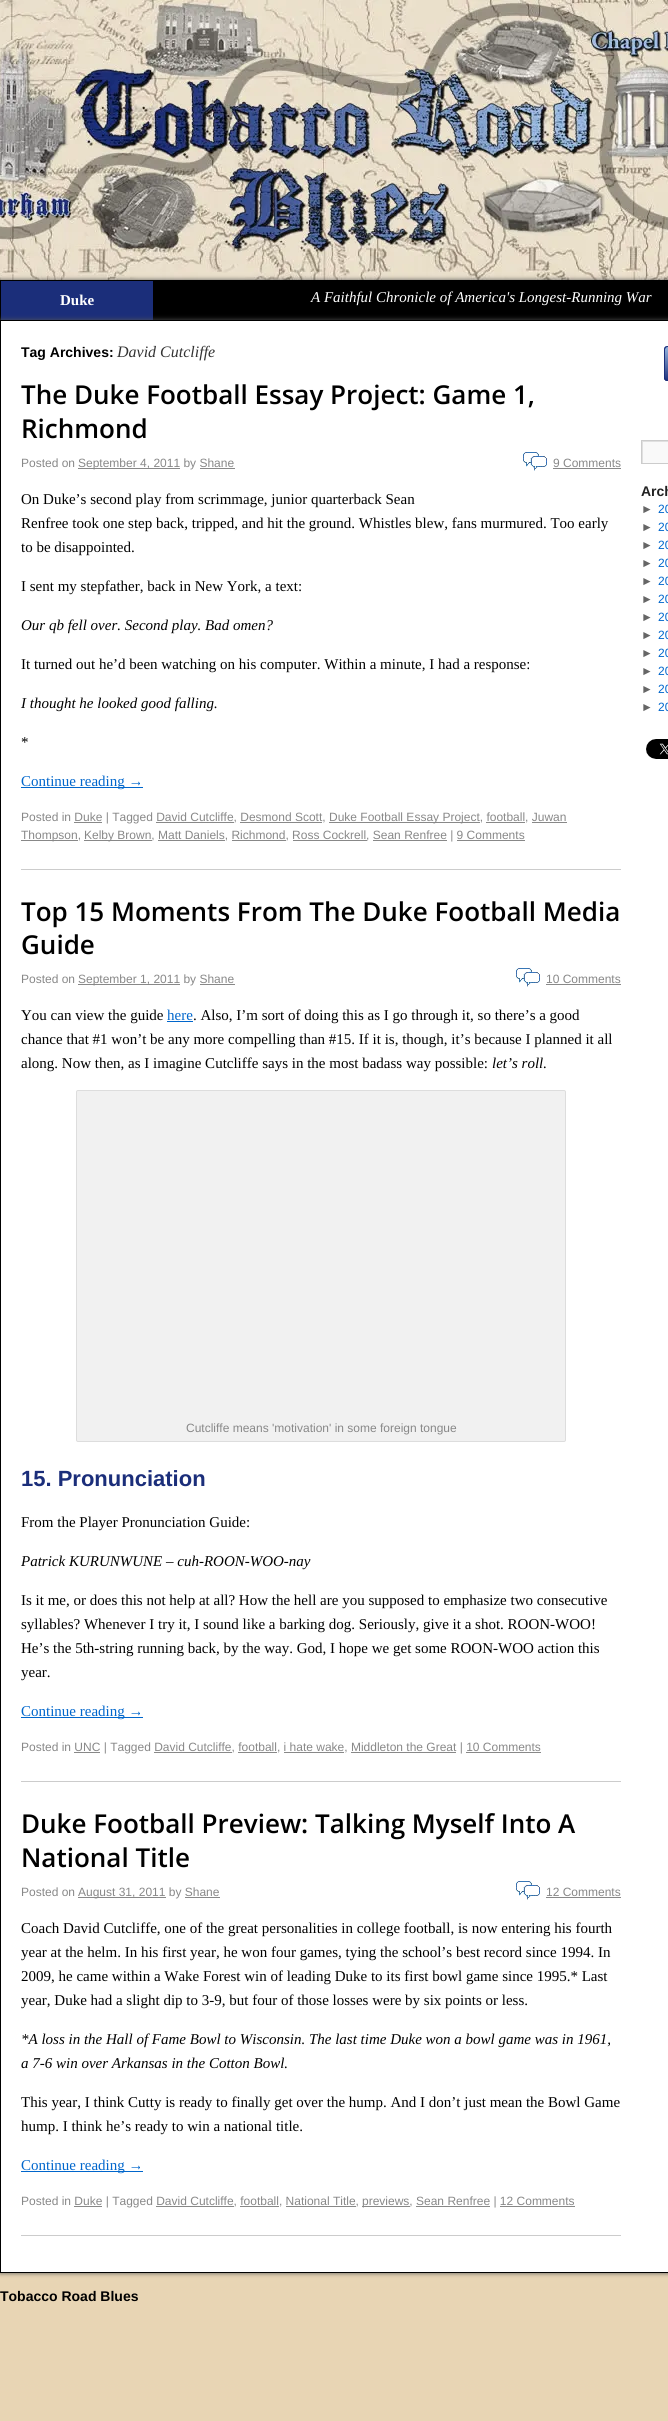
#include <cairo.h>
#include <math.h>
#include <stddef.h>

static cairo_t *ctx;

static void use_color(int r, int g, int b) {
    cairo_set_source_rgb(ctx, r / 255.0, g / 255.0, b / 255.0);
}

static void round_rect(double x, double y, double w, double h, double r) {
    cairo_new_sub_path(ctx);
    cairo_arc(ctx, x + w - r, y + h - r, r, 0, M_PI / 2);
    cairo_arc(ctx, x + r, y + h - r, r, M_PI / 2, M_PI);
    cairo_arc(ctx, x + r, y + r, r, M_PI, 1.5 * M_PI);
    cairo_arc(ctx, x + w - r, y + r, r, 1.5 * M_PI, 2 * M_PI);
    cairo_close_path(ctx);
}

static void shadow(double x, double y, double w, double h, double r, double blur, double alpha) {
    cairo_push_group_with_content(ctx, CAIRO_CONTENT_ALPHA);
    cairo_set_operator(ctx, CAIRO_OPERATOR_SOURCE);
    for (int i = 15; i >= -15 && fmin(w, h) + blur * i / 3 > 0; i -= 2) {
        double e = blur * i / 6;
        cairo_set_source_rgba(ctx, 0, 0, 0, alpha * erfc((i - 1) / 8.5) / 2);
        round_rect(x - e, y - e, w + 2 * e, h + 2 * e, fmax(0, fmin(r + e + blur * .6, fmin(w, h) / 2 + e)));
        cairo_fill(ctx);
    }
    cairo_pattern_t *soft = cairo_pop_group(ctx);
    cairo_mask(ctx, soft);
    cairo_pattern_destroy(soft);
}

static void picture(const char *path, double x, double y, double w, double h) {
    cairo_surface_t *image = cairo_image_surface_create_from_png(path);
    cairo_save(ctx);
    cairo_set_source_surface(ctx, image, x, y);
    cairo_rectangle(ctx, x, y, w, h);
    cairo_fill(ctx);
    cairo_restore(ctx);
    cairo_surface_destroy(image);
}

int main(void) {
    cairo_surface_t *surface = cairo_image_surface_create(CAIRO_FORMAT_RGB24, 668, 2421);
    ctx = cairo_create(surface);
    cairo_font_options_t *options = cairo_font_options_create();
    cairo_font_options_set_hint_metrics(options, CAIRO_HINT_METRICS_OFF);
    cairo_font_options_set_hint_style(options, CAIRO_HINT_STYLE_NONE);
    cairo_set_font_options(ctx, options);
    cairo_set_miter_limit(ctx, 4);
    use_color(232, 213, 180);
    cairo_paint(ctx);
    picture("img1.png", 0, 0, 668, 280);
    use_color(85, 85, 85);
    shadow(0, 280, 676, 40, 0, 2.5, 1);
    use_color(0, 0, 0);
    cairo_rectangle(ctx, 0, 280, 668, 40);
    cairo_fill(ctx);
    use_color(27, 46, 122);
    cairo_rectangle(ctx, 1, 281, 152, 39);
    cairo_fill(ctx);
    cairo_select_font_face(ctx, "Liberation Serif", CAIRO_FONT_SLANT_NORMAL, CAIRO_FONT_WEIGHT_BOLD);
    cairo_set_font_size(ctx, 15);
    use_color(255, 255, 255);
    cairo_move_to(ctx, 60, 305);
    cairo_show_text(ctx, "Duke");
    cairo_select_font_face(ctx, "Liberation Serif", CAIRO_FONT_SLANT_ITALIC, CAIRO_FONT_WEIGHT_NORMAL);
    cairo_move_to(ctx, 311, 302);
    cairo_show_text(ctx, "A Faithful Chronicle of America's Longest-Running War");
    use_color(85, 85, 85);
    shadow(0, 320, 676, 1953, 0, 2.5, 1);
    use_color(255, 255, 255);
    cairo_rectangle(ctx, 0.5, 320.5, 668, 1952);
    cairo_fill_preserve(ctx);
    use_color(0, 0, 0);
    cairo_set_line_width(ctx, 1);
    cairo_stroke(ctx);
    cairo_select_font_face(ctx, "Liberation Sans", CAIRO_FONT_SLANT_NORMAL, CAIRO_FONT_WEIGHT_BOLD);
    cairo_set_font_size(ctx, 14);
    cairo_move_to(ctx, 21, 357);
    cairo_show_text(ctx, "Tag Archives:");
    cairo_select_font_face(ctx, "Liberation Serif", CAIRO_FONT_SLANT_ITALIC, CAIRO_FONT_WEIGHT_NORMAL);
    cairo_set_font_size(ctx, 16);
    use_color(51, 51, 51);
    cairo_move_to(ctx, 117, 357);
    cairo_show_text(ctx, "David Cutcliffe");
    use_color(204, 204, 204);
    cairo_rectangle(ctx, 21, 869, 600, 1);
    cairo_fill(ctx);
    cairo_select_font_face(ctx, "Open Sans SemiBold", CAIRO_FONT_SLANT_NORMAL, CAIRO_FONT_WEIGHT_NORMAL);
    cairo_set_font_size(ctx, 26);
    use_color(0, 0, 0);
    cairo_move_to(ctx, 21, 404);
    cairo_show_text(ctx, "The Duke Football Essay Project: Game 1,");
    cairo_move_to(ctx, 21, 438);
    cairo_show_text(ctx, "Richmond");
    cairo_select_font_face(ctx, "Liberation Sans", CAIRO_FONT_SLANT_NORMAL, CAIRO_FONT_WEIGHT_NORMAL);
    cairo_set_font_size(ctx, 12);
    use_color(136, 136, 136);
    cairo_move_to(ctx, 21, 467);
    cairo_show_text(ctx, "Posted on");
    cairo_rectangle(ctx, 78, 468, 102, 1);
    cairo_fill(ctx);
    cairo_move_to(ctx, 78, 467);
    cairo_show_text(ctx, "September 4, 2011 by Shane");
    cairo_rectangle(ctx, 200, 468, 35, 1);
    cairo_fill(ctx);
    picture("img2.png", 523, 452, 24, 19);
    cairo_move_to(ctx, 553, 467);
    cairo_show_text(ctx, "9 Comments");
    cairo_rectangle(ctx, 553, 468, 68, 1);
    cairo_fill(ctx);
    cairo_select_font_face(ctx, "Liberation Serif", CAIRO_FONT_SLANT_NORMAL, CAIRO_FONT_WEIGHT_NORMAL);
    cairo_set_font_size(ctx, 15);
    use_color(0, 0, 0);
    cairo_move_to(ctx, 21, 504);
    cairo_show_text(ctx, "On Duke’s second play from scrimmage, junior quarterback Sean");
    cairo_move_to(ctx, 21, 528);
    cairo_show_text(ctx, "Renfree took one step back, tripped, and hit the ground. Whistles blew, fans murmured. Too early");
    cairo_move_to(ctx, 21, 552);
    cairo_show_text(ctx, "to be disappointed.");
    cairo_move_to(ctx, 21, 591);
    cairo_show_text(ctx, "I sent my stepfather, back in New York, a text:");
    cairo_select_font_face(ctx, "Liberation Serif", CAIRO_FONT_SLANT_ITALIC, CAIRO_FONT_WEIGHT_NORMAL);
    cairo_move_to(ctx, 21, 630);
    cairo_show_text(ctx, "Our qb fell over. Second play. Bad omen?");
    cairo_select_font_face(ctx, "Liberation Serif", CAIRO_FONT_SLANT_NORMAL, CAIRO_FONT_WEIGHT_NORMAL);
    cairo_move_to(ctx, 21, 669);
    cairo_show_text(ctx, "It turned out he’d been watching on his computer. Within a minute, I had a response:");
    cairo_select_font_face(ctx, "Liberation Serif", CAIRO_FONT_SLANT_ITALIC, CAIRO_FONT_WEIGHT_NORMAL);
    cairo_move_to(ctx, 21, 708);
    cairo_show_text(ctx, "I thought he looked good falling.");
    cairo_select_font_face(ctx, "Liberation Serif", CAIRO_FONT_SLANT_NORMAL, CAIRO_FONT_WEIGHT_NORMAL);
    cairo_move_to(ctx, 21, 747);
    cairo_show_text(ctx, "*");
    use_color(0, 102, 204);
    cairo_rectangle(ctx, 21, 787, 122, 1);
    cairo_fill(ctx);
    cairo_move_to(ctx, 21, 786);
    cairo_show_text(ctx, "Continue reading →");
    cairo_select_font_face(ctx, "Liberation Sans", CAIRO_FONT_SLANT_NORMAL, CAIRO_FONT_WEIGHT_NORMAL);
    cairo_set_font_size(ctx, 12);
    use_color(136, 136, 136);
    cairo_move_to(ctx, 21, 821);
    cairo_show_text(ctx, "Posted in Duke | Tagged David Cutcliffe, Desmond Scott,");
    cairo_rectangle(ctx, 74, 822, 28, 1);
    cairo_fill(ctx);
    cairo_rectangle(ctx, 329, 822, 151, 1);
    cairo_fill(ctx);
    cairo_move_to(ctx, 329, 821);
    cairo_show_text(ctx, "Duke Football Essay Project, football, Juwan");
    cairo_rectangle(ctx, 240, 822, 82, 1);
    cairo_fill(ctx);
    cairo_rectangle(ctx, 486, 822, 39, 1);
    cairo_fill(ctx);
    cairo_rectangle(ctx, 532, 822, 35, 1);
    cairo_fill(ctx);
    cairo_rectangle(ctx, 21, 840, 57, 1);
    cairo_fill(ctx);
    cairo_move_to(ctx, 21, 839);
    cairo_show_text(ctx, "Thompson,");
    cairo_rectangle(ctx, 84, 840, 68, 1);
    cairo_fill(ctx);
    cairo_move_to(ctx, 84, 839);
    cairo_show_text(ctx, "Kelby Brown, Matt Daniels, Richmond, Ross Cockrell, Sean Renfree | 9 Comments");
    cairo_rectangle(ctx, 156, 822, 78, 1);
    cairo_fill(ctx);
    cairo_rectangle(ctx, 158, 840, 67, 1);
    cairo_fill(ctx);
    cairo_rectangle(ctx, 232, 840, 54, 1);
    cairo_fill(ctx);
    cairo_rectangle(ctx, 293, 840, 74, 1);
    cairo_fill(ctx);
    cairo_rectangle(ctx, 373, 840, 74, 1);
    cairo_fill(ctx);
    cairo_rectangle(ctx, 457, 840, 68, 1);
    cairo_fill(ctx);
    use_color(204, 204, 204);
    cairo_rectangle(ctx, 21, 1781, 600, 1);
    cairo_fill(ctx);
    cairo_select_font_face(ctx, "Open Sans SemiBold", CAIRO_FONT_SLANT_NORMAL, CAIRO_FONT_WEIGHT_NORMAL);
    cairo_set_font_size(ctx, 26);
    use_color(0, 0, 0);
    cairo_move_to(ctx, 21, 921);
    cairo_show_text(ctx, "Top 15 Moments From The Duke Football Media");
    cairo_move_to(ctx, 21, 954);
    cairo_show_text(ctx, "Guide");
    cairo_select_font_face(ctx, "Liberation Sans", CAIRO_FONT_SLANT_NORMAL, CAIRO_FONT_WEIGHT_NORMAL);
    cairo_set_font_size(ctx, 12);
    use_color(136, 136, 136);
    cairo_move_to(ctx, 21, 983);
    cairo_show_text(ctx, "Posted on");
    cairo_rectangle(ctx, 78, 984, 102, 1);
    cairo_fill(ctx);
    cairo_move_to(ctx, 78, 983);
    cairo_show_text(ctx, "September 1, 2011 by Shane");
    cairo_rectangle(ctx, 200, 984, 35, 1);
    cairo_fill(ctx);
    picture("img2.png", 516, 968, 24, 19);
    cairo_move_to(ctx, 546, 983);
    cairo_show_text(ctx, "10 Comments");
    cairo_rectangle(ctx, 546, 984, 75, 1);
    cairo_fill(ctx);
    cairo_select_font_face(ctx, "Liberation Serif", CAIRO_FONT_SLANT_NORMAL, CAIRO_FONT_WEIGHT_NORMAL);
    cairo_set_font_size(ctx, 15);
    use_color(0, 0, 0);
    cairo_move_to(ctx, 21, 1020);
    cairo_show_text(ctx, "You can view the guide");
    use_color(0, 102, 204);
    cairo_move_to(ctx, 167, 1020);
    cairo_show_text(ctx, "here");
    cairo_rectangle(ctx, 167, 1021, 26, 1);
    cairo_fill(ctx);
    use_color(0, 0, 0);
    cairo_move_to(ctx, 193, 1020);
    cairo_show_text(ctx, ". Also, I’m sort of doing this as I go through it, so there’s a good");
    cairo_move_to(ctx, 21, 1044);
    cairo_show_text(ctx, "chance that #1 won’t be any more compelling than #15. If it is, though, it’s because I planned it all");
    cairo_move_to(ctx, 21, 1068);
    cairo_show_text(ctx, "along. Now then, as I imagine Cutcliffe says in the most badass way possible:");
    cairo_select_font_face(ctx, "Liberation Serif", CAIRO_FONT_SLANT_ITALIC, CAIRO_FONT_WEIGHT_NORMAL);
    cairo_move_to(ctx, 492, 1068);
    cairo_show_text(ctx, "let’s roll.");
    use_color(241, 241, 241);
    round_rect(76.5, 1090.5, 489, 351, 1.5);
    cairo_fill_preserve(ctx);
    use_color(221, 221, 221);
    cairo_stroke(ctx);
    cairo_select_font_face(ctx, "Liberation Sans", CAIRO_FONT_SLANT_NORMAL, CAIRO_FONT_WEIGHT_NORMAL);
    cairo_set_font_size(ctx, 12);
    use_color(136, 136, 136);
    cairo_move_to(ctx, 186, 1432);
    cairo_show_text(ctx, "Cutcliffe means 'motivation' in some foreign tongue");
    cairo_select_font_face(ctx, "Liberation Sans", CAIRO_FONT_SLANT_NORMAL, CAIRO_FONT_WEIGHT_BOLD);
    cairo_set_font_size(ctx, 22);
    use_color(27, 46, 122);
    cairo_move_to(ctx, 21, 1486);
    cairo_show_text(ctx, "15. Pronunciation");
    cairo_select_font_face(ctx, "Liberation Serif", CAIRO_FONT_SLANT_NORMAL, CAIRO_FONT_WEIGHT_NORMAL);
    cairo_set_font_size(ctx, 15);
    use_color(0, 0, 0);
    cairo_move_to(ctx, 21, 1527);
    cairo_show_text(ctx, "From the Player Pronunciation Guide:");
    cairo_select_font_face(ctx, "Liberation Serif", CAIRO_FONT_SLANT_ITALIC, CAIRO_FONT_WEIGHT_NORMAL);
    cairo_move_to(ctx, 21, 1566);
    cairo_show_text(ctx, "Patrick KURUNWUNE – cuh-ROON-WOO-nay");
    cairo_select_font_face(ctx, "Liberation Serif", CAIRO_FONT_SLANT_NORMAL, CAIRO_FONT_WEIGHT_NORMAL);
    cairo_move_to(ctx, 21, 1605);
    cairo_show_text(ctx, "Is it me, or does this not help at all? How the hell are you supposed to emphasize two consecutive");
    cairo_move_to(ctx, 21, 1629);
    cairo_show_text(ctx, "syllables? Whenever I try it, I sound like a barking dog. Seriously, give it a shot. ROON-WOO!");
    cairo_move_to(ctx, 21, 1653);
    cairo_show_text(ctx, "He’s the 5th-string running back, by the way. God, I hope we get some ROON-WOO action this");
    cairo_move_to(ctx, 21, 1677);
    cairo_show_text(ctx, "year.");
    use_color(0, 102, 204);
    cairo_rectangle(ctx, 21, 1717, 122, 1);
    cairo_fill(ctx);
    cairo_move_to(ctx, 21, 1716);
    cairo_show_text(ctx, "Continue reading →");
    cairo_select_font_face(ctx, "Liberation Sans", CAIRO_FONT_SLANT_NORMAL, CAIRO_FONT_WEIGHT_NORMAL);
    cairo_set_font_size(ctx, 12);
    use_color(136, 136, 136);
    cairo_move_to(ctx, 21, 1751);
    cairo_show_text(ctx, "Posted in UNC | Tagged David Cutcliffe, football, i hate wake, Middleton the Great | 10 Comments");
    cairo_rectangle(ctx, 74, 1752, 26, 1);
    cairo_fill(ctx);
    cairo_rectangle(ctx, 154, 1752, 78, 1);
    cairo_fill(ctx);
    cairo_rectangle(ctx, 238, 1752, 39, 1);
    cairo_fill(ctx);
    cairo_rectangle(ctx, 284, 1752, 60, 1);
    cairo_fill(ctx);
    cairo_rectangle(ctx, 351, 1752, 105, 1);
    cairo_fill(ctx);
    cairo_rectangle(ctx, 466, 1752, 75, 1);
    cairo_fill(ctx);
    use_color(204, 204, 204);
    cairo_rectangle(ctx, 21, 2235, 600, 1);
    cairo_fill(ctx);
    cairo_select_font_face(ctx, "Open Sans SemiBold", CAIRO_FONT_SLANT_NORMAL, CAIRO_FONT_WEIGHT_NORMAL);
    cairo_set_font_size(ctx, 26);
    use_color(0, 0, 0);
    cairo_move_to(ctx, 21, 1833);
    cairo_show_text(ctx, "Duke Football Preview: Talking Myself Into A");
    cairo_move_to(ctx, 21, 1867);
    cairo_show_text(ctx, "National Title");
    cairo_select_font_face(ctx, "Liberation Sans", CAIRO_FONT_SLANT_NORMAL, CAIRO_FONT_WEIGHT_NORMAL);
    cairo_set_font_size(ctx, 12);
    use_color(136, 136, 136);
    cairo_move_to(ctx, 21, 1896);
    cairo_show_text(ctx, "Posted on");
    cairo_rectangle(ctx, 78, 1897, 88, 1);
    cairo_fill(ctx);
    cairo_move_to(ctx, 78, 1896);
    cairo_show_text(ctx, "August 31, 2011 by Shane");
    cairo_rectangle(ctx, 185, 1897, 35, 1);
    cairo_fill(ctx);
    picture("img2.png", 516, 1881, 24, 19);
    cairo_move_to(ctx, 546, 1896);
    cairo_show_text(ctx, "12 Comments");
    cairo_rectangle(ctx, 546, 1897, 75, 1);
    cairo_fill(ctx);
    cairo_select_font_face(ctx, "Liberation Serif", CAIRO_FONT_SLANT_NORMAL, CAIRO_FONT_WEIGHT_NORMAL);
    cairo_set_font_size(ctx, 15);
    use_color(0, 0, 0);
    cairo_move_to(ctx, 21, 1933);
    cairo_show_text(ctx, "Coach David Cutcliffe, one of the great personalities in college football, is now entering his fourth");
    cairo_move_to(ctx, 21, 1957);
    cairo_show_text(ctx, "year at the helm. In his first year, he won four games, tying the school’s best record since 1994. In");
    cairo_move_to(ctx, 21, 1981);
    cairo_show_text(ctx, "2009, he came within a Wake Forest win of leading Duke to its first bowl game since 1995.* Last");
    cairo_move_to(ctx, 21, 2005);
    cairo_show_text(ctx, "year, Duke had a slight dip to 3-9, but four of those losses were by six points or less.");
    cairo_select_font_face(ctx, "Liberation Serif", CAIRO_FONT_SLANT_ITALIC, CAIRO_FONT_WEIGHT_NORMAL);
    cairo_move_to(ctx, 21, 2044);
    cairo_show_text(ctx, "*A loss in the Hall of Fame Bowl to Wisconsin. The last time Duke won a bowl game was in 1961,");
    cairo_move_to(ctx, 21, 2068);
    cairo_show_text(ctx, "a 7-6 win over Arkansas in the Cotton Bowl.");
    cairo_select_font_face(ctx, "Liberation Serif", CAIRO_FONT_SLANT_NORMAL, CAIRO_FONT_WEIGHT_NORMAL);
    cairo_move_to(ctx, 21, 2107);
    cairo_show_text(ctx, "This year, I think Cutty is ready to finally get over the hump. And I don’t just mean the Bowl Game");
    cairo_move_to(ctx, 21, 2131);
    cairo_show_text(ctx, "hump. I think he’s ready to win a national title.");
    use_color(0, 102, 204);
    cairo_rectangle(ctx, 21, 2171, 122, 1);
    cairo_fill(ctx);
    cairo_move_to(ctx, 21, 2170);
    cairo_show_text(ctx, "Continue reading →");
    cairo_select_font_face(ctx, "Liberation Sans", CAIRO_FONT_SLANT_NORMAL, CAIRO_FONT_WEIGHT_NORMAL);
    cairo_set_font_size(ctx, 12);
    use_color(136, 136, 136);
    cairo_move_to(ctx, 21, 2205);
    cairo_show_text(ctx, "Posted in Duke | Tagged David Cutcliffe, football, National Title,");
    cairo_rectangle(ctx, 74, 2206, 28, 1);
    cairo_fill(ctx);
    cairo_rectangle(ctx, 362, 2206, 48, 1);
    cairo_fill(ctx);
    cairo_move_to(ctx, 362, 2205);
    cairo_show_text(ctx, "previews, Sean Renfree | 12 Comments");
    cairo_rectangle(ctx, 156, 2206, 78, 1);
    cairo_fill(ctx);
    cairo_rectangle(ctx, 240, 2206, 39, 1);
    cairo_fill(ctx);
    cairo_rectangle(ctx, 286, 2206, 70, 1);
    cairo_fill(ctx);
    cairo_rectangle(ctx, 416, 2206, 74, 1);
    cairo_fill(ctx);
    cairo_rectangle(ctx, 500, 2206, 75, 1);
    cairo_fill(ctx);
    picture("img3.png", 664, 346, 4, 35);
    picture("img4.png", 664, 346, 2, 35);
    use_color(249, 249, 249);
    cairo_rectangle(ctx, 643, 442, 25, 21);
    cairo_fill(ctx);
    cairo_save(ctx);
    cairo_rectangle(ctx, 642, 441, 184, 22);
    cairo_clip(ctx);
    use_color(224, 224, 224);
    cairo_set_fill_rule(ctx, CAIRO_FILL_RULE_EVEN_ODD);
    cairo_new_path(ctx);
    cairo_move_to(ctx, 543, 342);
    cairo_line_to(ctx, 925, 342);
    cairo_line_to(ctx, 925, 562);
    cairo_line_to(ctx, 543, 562);
    cairo_close_path(ctx);
    cairo_move_to(ctx, 643, 442);
    cairo_line_to(ctx, 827, 442);
    cairo_line_to(ctx, 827, 464);
    cairo_line_to(ctx, 643, 464);
    cairo_close_path(ctx);
    cairo_fill(ctx);
    cairo_restore(ctx);
    cairo_rectangle(ctx, 641.5, 440.5, 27, 23);
    use_color(204, 204, 204);
    cairo_stroke(ctx);
    cairo_select_font_face(ctx, "Liberation Sans", CAIRO_FONT_SLANT_NORMAL, CAIRO_FONT_WEIGHT_BOLD);
    cairo_set_font_size(ctx, 14);
    use_color(34, 34, 34);
    cairo_move_to(ctx, 641, 496);
    cairo_show_text(ctx, "Arch");
    cairo_select_font_face(ctx, "Liberation Sans", CAIRO_FONT_SLANT_NORMAL, CAIRO_FONT_WEIGHT_NORMAL);
    cairo_set_font_size(ctx, 12);
    use_color(102, 102, 102);
    cairo_move_to(ctx, 641, 513);
    cairo_show_text(ctx, "►");
    use_color(0, 102, 204);
    cairo_move_to(ctx, 658, 513);
    cairo_show_text(ctx, "20");
    use_color(102, 102, 102);
    cairo_move_to(ctx, 641, 531);
    cairo_show_text(ctx, "►");
    use_color(0, 102, 204);
    cairo_move_to(ctx, 658, 531);
    cairo_show_text(ctx, "20");
    use_color(102, 102, 102);
    cairo_move_to(ctx, 641, 549);
    cairo_show_text(ctx, "►");
    use_color(0, 102, 204);
    cairo_move_to(ctx, 658, 549);
    cairo_show_text(ctx, "20");
    use_color(102, 102, 102);
    cairo_move_to(ctx, 641, 567);
    cairo_show_text(ctx, "►");
    use_color(0, 102, 204);
    cairo_move_to(ctx, 658, 567);
    cairo_show_text(ctx, "20");
    use_color(102, 102, 102);
    cairo_move_to(ctx, 641, 585);
    cairo_show_text(ctx, "►");
    use_color(0, 102, 204);
    cairo_move_to(ctx, 658, 585);
    cairo_show_text(ctx, "20");
    use_color(102, 102, 102);
    cairo_move_to(ctx, 641, 603);
    cairo_show_text(ctx, "►");
    use_color(0, 102, 204);
    cairo_move_to(ctx, 658, 603);
    cairo_show_text(ctx, "20");
    use_color(102, 102, 102);
    cairo_move_to(ctx, 641, 621);
    cairo_show_text(ctx, "►");
    use_color(0, 102, 204);
    cairo_move_to(ctx, 658, 621);
    cairo_show_text(ctx, "20");
    use_color(102, 102, 102);
    cairo_move_to(ctx, 641, 639);
    cairo_show_text(ctx, "►");
    use_color(0, 102, 204);
    cairo_move_to(ctx, 658, 639);
    cairo_show_text(ctx, "20");
    use_color(102, 102, 102);
    cairo_move_to(ctx, 641, 657);
    cairo_show_text(ctx, "►");
    use_color(0, 102, 204);
    cairo_move_to(ctx, 658, 657);
    cairo_show_text(ctx, "20");
    use_color(102, 102, 102);
    cairo_move_to(ctx, 641, 675);
    cairo_show_text(ctx, "►");
    use_color(0, 102, 204);
    cairo_move_to(ctx, 658, 675);
    cairo_show_text(ctx, "20");
    use_color(102, 102, 102);
    cairo_move_to(ctx, 641, 693);
    cairo_show_text(ctx, "►");
    use_color(0, 102, 204);
    cairo_move_to(ctx, 658, 693);
    cairo_show_text(ctx, "20");
    use_color(102, 102, 102);
    cairo_move_to(ctx, 641, 711);
    cairo_show_text(ctx, "►");
    use_color(0, 102, 204);
    cairo_move_to(ctx, 658, 711);
    cairo_show_text(ctx, "20");
    picture("img5.png", 646, 739, 22, 20);
    cairo_select_font_face(ctx, "Liberation Sans", CAIRO_FONT_SLANT_NORMAL, CAIRO_FONT_WEIGHT_BOLD);
    cairo_set_font_size(ctx, 14);
    use_color(0, 0, 0);
    cairo_move_to(ctx, 0, 2301);
    cairo_show_text(ctx, "Tobacco Road Blues");
    cairo_surface_write_to_png(surface, "result.png");
    cairo_font_options_destroy(options);
    cairo_destroy(ctx);
    cairo_surface_destroy(surface);
    return 0;
}
